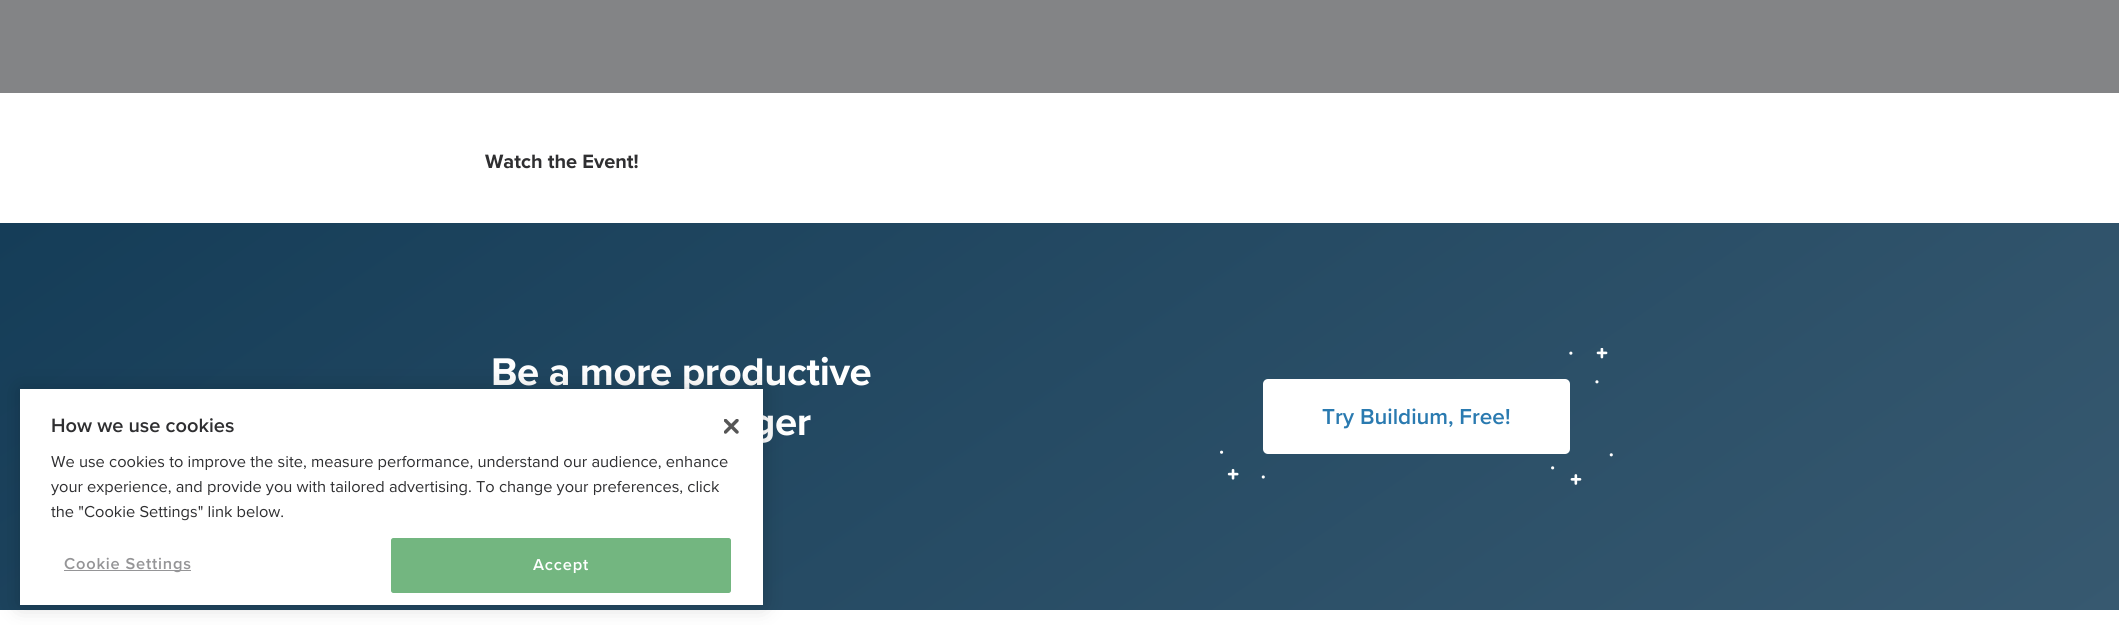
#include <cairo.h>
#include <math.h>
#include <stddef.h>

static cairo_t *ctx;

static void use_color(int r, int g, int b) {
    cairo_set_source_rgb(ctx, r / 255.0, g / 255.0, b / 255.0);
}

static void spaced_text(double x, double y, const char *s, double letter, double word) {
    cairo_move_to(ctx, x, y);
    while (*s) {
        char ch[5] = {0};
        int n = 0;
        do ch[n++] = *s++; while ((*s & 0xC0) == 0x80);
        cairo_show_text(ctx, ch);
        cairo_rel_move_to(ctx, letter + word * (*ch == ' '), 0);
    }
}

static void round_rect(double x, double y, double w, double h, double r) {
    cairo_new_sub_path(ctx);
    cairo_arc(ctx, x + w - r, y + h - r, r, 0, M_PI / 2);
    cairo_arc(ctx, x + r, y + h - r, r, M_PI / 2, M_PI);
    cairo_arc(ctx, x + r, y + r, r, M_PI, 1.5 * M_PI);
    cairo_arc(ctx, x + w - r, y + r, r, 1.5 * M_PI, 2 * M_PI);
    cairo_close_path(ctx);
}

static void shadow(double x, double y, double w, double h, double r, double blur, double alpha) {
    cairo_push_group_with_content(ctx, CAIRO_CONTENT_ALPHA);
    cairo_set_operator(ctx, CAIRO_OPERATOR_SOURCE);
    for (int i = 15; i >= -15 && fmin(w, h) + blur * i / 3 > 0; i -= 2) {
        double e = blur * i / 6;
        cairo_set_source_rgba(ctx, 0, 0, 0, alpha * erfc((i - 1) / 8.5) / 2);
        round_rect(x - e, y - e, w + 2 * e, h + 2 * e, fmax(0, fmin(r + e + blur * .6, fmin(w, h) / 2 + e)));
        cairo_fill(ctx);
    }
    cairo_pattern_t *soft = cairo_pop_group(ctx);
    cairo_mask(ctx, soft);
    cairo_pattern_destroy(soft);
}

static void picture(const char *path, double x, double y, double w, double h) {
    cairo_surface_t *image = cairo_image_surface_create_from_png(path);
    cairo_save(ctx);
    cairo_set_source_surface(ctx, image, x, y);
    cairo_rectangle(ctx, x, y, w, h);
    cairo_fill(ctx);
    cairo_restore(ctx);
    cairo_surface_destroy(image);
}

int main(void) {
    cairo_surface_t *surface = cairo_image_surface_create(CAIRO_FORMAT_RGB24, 2119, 625);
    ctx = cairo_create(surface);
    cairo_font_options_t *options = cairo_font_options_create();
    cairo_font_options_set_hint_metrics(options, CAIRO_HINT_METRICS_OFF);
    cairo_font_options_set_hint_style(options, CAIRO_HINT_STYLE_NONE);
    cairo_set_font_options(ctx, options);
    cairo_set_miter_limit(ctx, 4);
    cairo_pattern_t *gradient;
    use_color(255, 255, 255);
    cairo_paint(ctx);
    use_color(131, 132, 134);
    cairo_rectangle(ctx, 0, 0, 2119, 93);
    cairo_fill(ctx);
    cairo_select_font_face(ctx, "Proxima Nova", CAIRO_FONT_SLANT_NORMAL, CAIRO_FONT_WEIGHT_BOLD);
    cairo_set_font_size(ctx, 20);
    use_color(47, 47, 49);
    cairo_move_to(ctx, 485, 168);
    cairo_show_text(ctx, "Watch the Event!");
    gradient = cairo_pattern_create_linear(629, -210, 1491, 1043);
    cairo_pattern_add_color_stop_rgba(gradient, 0, 0.082, 0.239, 0.345, 1);
    cairo_pattern_add_color_stop_rgba(gradient, 1, 0.216, 0.349, 0.439, 1);
    cairo_set_source(ctx, gradient);
    cairo_pattern_destroy(gradient);
    cairo_rectangle(ctx, 0, 223, 2119, 387);
    cairo_fill(ctx);
    cairo_set_font_size(ctx, 40);
    use_color(255, 255, 255);
    spaced_text(491, 385, "Be a more productive", -0.4, 0);
    spaced_text(752, 435, "ger", -0.4, 0);
    picture("img1.png", 1220, 348, 393, 137);
    round_rect(1263, 379, 307, 75, 5);
    cairo_fill(ctx);
    cairo_select_font_face(ctx, "Proxima Nova SemiBold", CAIRO_FONT_SLANT_NORMAL, CAIRO_FONT_WEIGHT_NORMAL);
    cairo_set_font_size(ctx, 22.5);
    use_color(42, 122, 176);
    cairo_move_to(ctx, 1322, 424);
    cairo_show_text(ctx, "Try Buildium, Free!");
    use_color(0, 0, 0);
    shadow(20, 389, 743, 216, 0, 11, 0.2);
    use_color(255, 255, 255);
    cairo_rectangle(ctx, 20, 389, 743, 216);
    cairo_fill(ctx);
    cairo_set_font_size(ctx, 20);
    use_color(47, 47, 49);
    cairo_move_to(ctx, 51, 432);
    cairo_show_text(ctx, "How we use cookies");
    cairo_select_font_face(ctx, "Proxima Nova", CAIRO_FONT_SLANT_NORMAL, CAIRO_FONT_WEIGHT_NORMAL);
    cairo_set_font_size(ctx, 16.4);
    cairo_move_to(ctx, 51, 467);
    cairo_show_text(ctx, "We use cookies to improve the site, measure performance, understand our audience, enhance");
    cairo_move_to(ctx, 51, 492);
    cairo_show_text(ctx, "your experience, and provide you with tailored advertising. To change your preferences, click");
    cairo_move_to(ctx, 51, 517);
    cairo_show_text(ctx, "the \"Cookie Settings\" link below.");
    picture("img2.png", 724, 419, 15, 15);
    use_color(149, 149, 151);
    cairo_rectangle(ctx, 64, 570, 127, 1);
    cairo_fill(ctx);
    cairo_select_font_face(ctx, "Proxima Nova SemiBold", CAIRO_FONT_SLANT_NORMAL, CAIRO_FONT_WEIGHT_NORMAL);
    spaced_text(64, 569, "Cookie Settings", 0.8, 0);
    use_color(115, 182, 128);
    round_rect(391.5, 538.5, 339, 54, 2);
    cairo_fill_preserve(ctx);
    cairo_set_line_width(ctx, 1);
    cairo_stroke(ctx);
    use_color(255, 255, 255);
    spaced_text(533, 570, "Accept", 0.8, 0);
    cairo_surface_write_to_png(surface, "result.png");
    cairo_font_options_destroy(options);
    cairo_destroy(ctx);
    cairo_surface_destroy(surface);
    return 0;
}
